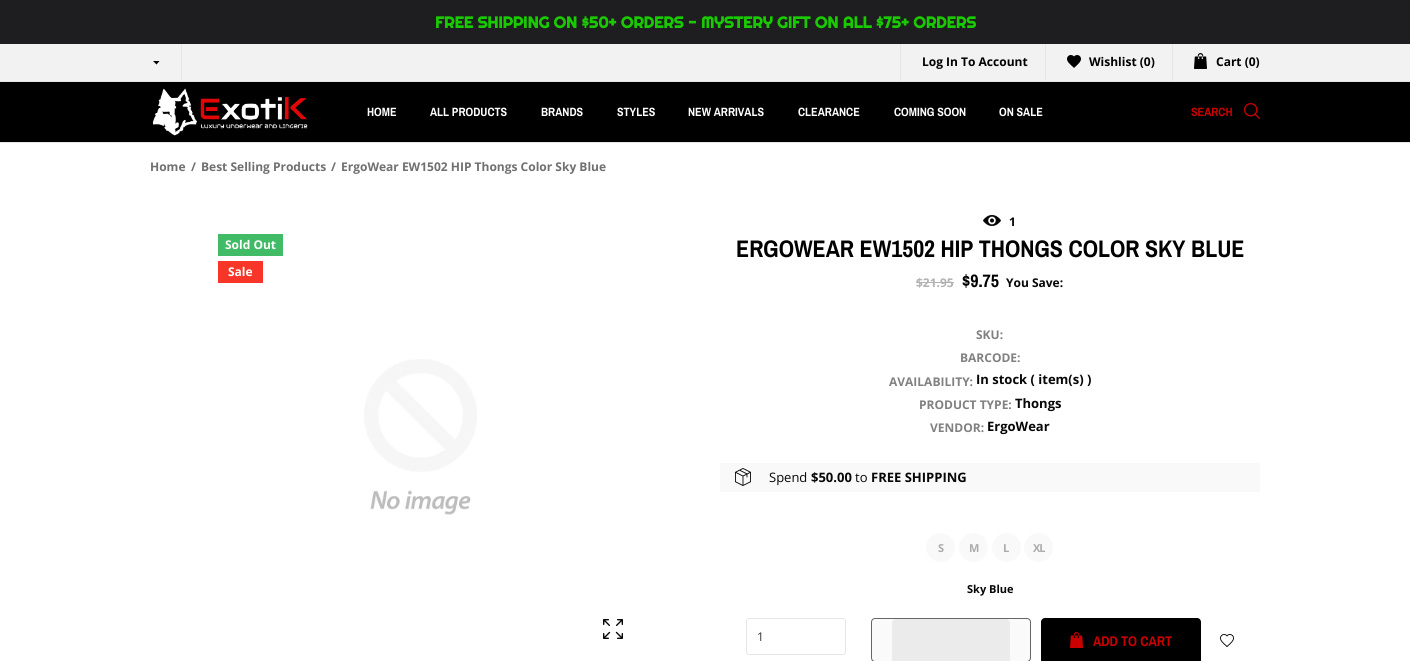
#include <cairo.h>
#include <math.h>
#include <stddef.h>

static cairo_t *ctx;

static void use_color(int r, int g, int b) {
    cairo_set_source_rgb(ctx, r / 255.0, g / 255.0, b / 255.0);
}

static void spaced_text(double x, double y, const char *s, double letter, double word) {
    cairo_move_to(ctx, x, y);
    while (*s) {
        char ch[5] = {0};
        int n = 0;
        do ch[n++] = *s++; while ((*s & 0xC0) == 0x80);
        cairo_show_text(ctx, ch);
        cairo_rel_move_to(ctx, letter + word * (*ch == ' '), 0);
    }
}

static void round_rect(double x, double y, double w, double h, double r) {
    cairo_new_sub_path(ctx);
    cairo_arc(ctx, x + w - r, y + h - r, r, 0, M_PI / 2);
    cairo_arc(ctx, x + r, y + h - r, r, M_PI / 2, M_PI);
    cairo_arc(ctx, x + r, y + r, r, M_PI, 1.5 * M_PI);
    cairo_arc(ctx, x + w - r, y + r, r, 1.5 * M_PI, 2 * M_PI);
    cairo_close_path(ctx);
}

static void picture(const char *path, double x, double y, double w, double h) {
    cairo_surface_t *image = cairo_image_surface_create_from_png(path);
    cairo_save(ctx);
    cairo_set_source_surface(ctx, image, x, y);
    cairo_rectangle(ctx, x, y, w, h);
    cairo_fill(ctx);
    cairo_restore(ctx);
    cairo_surface_destroy(image);
}

int main(void) {
    cairo_surface_t *surface = cairo_image_surface_create(CAIRO_FORMAT_RGB24, 1410, 661);
    ctx = cairo_create(surface);
    cairo_font_options_t *options = cairo_font_options_create();
    cairo_font_options_set_hint_metrics(options, CAIRO_HINT_METRICS_OFF);
    cairo_font_options_set_hint_style(options, CAIRO_HINT_STYLE_NONE);
    cairo_set_font_options(ctx, options);
    cairo_set_miter_limit(ctx, 4);
    use_color(255, 255, 255);
    cairo_paint(ctx);
    use_color(242, 242, 242);
    cairo_rectangle(ctx, 0, 44, 1410, 37);
    cairo_fill(ctx);
    use_color(230, 230, 230);
    cairo_rectangle(ctx, 181, 43, 1, 38);
    cairo_fill(ctx);
    cairo_rectangle(ctx, 900, 43, 1, 38);
    cairo_fill(ctx);
    cairo_rectangle(ctx, 1045, 43, 1, 38);
    cairo_fill(ctx);
    cairo_rectangle(ctx, 1172, 43, 1, 38);
    cairo_fill(ctx);
    use_color(30, 30, 32);
    cairo_rectangle(ctx, 0, 0, 1410, 44);
    cairo_fill(ctx);
    cairo_select_font_face(ctx, "Righteous", CAIRO_FONT_SLANT_NORMAL, CAIRO_FONT_WEIGHT_BOLD);
    cairo_set_font_size(ctx, 16);
    use_color(26, 202, 0);
    cairo_move_to(ctx, 435, 28);
    cairo_show_text(ctx, "FREE SHIPPING ON $50+ ORDERS - MYSTERY GIFT ON ALL $75+ ORDERS");
    use_color(230, 230, 230);
    cairo_rectangle(ctx, 0, 81, 1410, 1);
    cairo_fill(ctx);
    use_color(0, 0, 0);
    cairo_new_path(ctx);
    cairo_move_to(ctx, 156.5, 64.5);
    cairo_line_to(ctx, 153, 61);
    cairo_line_to(ctx, 159.5, 61);
    cairo_close_path(ctx);
    cairo_fill(ctx);
    cairo_select_font_face(ctx, "Open Sans", CAIRO_FONT_SLANT_NORMAL, CAIRO_FONT_WEIGHT_BOLD);
    cairo_set_font_size(ctx, 12);
    cairo_move_to(ctx, 922, 66);
    cairo_show_text(ctx, "Log In To Account");
    picture("img1.png", 1067, 55, 14, 13);
    cairo_move_to(ctx, 1089, 66);
    cairo_show_text(ctx, "Wishlist (0)");
    picture("img2.png", 1194, 53, 13, 16);
    cairo_move_to(ctx, 1216, 66);
    cairo_show_text(ctx, "Cart (0)");
    cairo_rectangle(ctx, 0, 82, 1410, 60);
    cairo_fill(ctx);
    use_color(230, 230, 230);
    cairo_rectangle(ctx, 0, 142, 1410, 1);
    cairo_fill(ctx);
    picture("img3.png", 152, 88, 156, 48);
    cairo_select_font_face(ctx, "Archivo Narrow", CAIRO_FONT_SLANT_NORMAL, CAIRO_FONT_WEIGHT_BOLD);
    use_color(255, 255, 255);
    cairo_move_to(ctx, 367, 116);
    cairo_show_text(ctx, "HOME");
    cairo_move_to(ctx, 430, 116);
    cairo_show_text(ctx, "ALL PRODUCTS");
    cairo_move_to(ctx, 541, 116);
    cairo_show_text(ctx, "BRANDS");
    cairo_move_to(ctx, 617, 116);
    cairo_show_text(ctx, "STYLES");
    cairo_move_to(ctx, 688, 116);
    cairo_show_text(ctx, "NEW ARRIVALS");
    cairo_move_to(ctx, 798, 116);
    cairo_show_text(ctx, "CLEARANCE");
    cairo_move_to(ctx, 894, 116);
    cairo_show_text(ctx, "COMING SOON");
    cairo_move_to(ctx, 999, 116);
    cairo_show_text(ctx, "ON SALE");
    use_color(202, 0, 0);
    cairo_move_to(ctx, 1191, 116);
    cairo_show_text(ctx, "SEARCH");
    picture("img4.png", 1244, 103, 16, 16);
    cairo_select_font_face(ctx, "Open Sans", CAIRO_FONT_SLANT_NORMAL, CAIRO_FONT_WEIGHT_BOLD);
    use_color(112, 112, 112);
    cairo_move_to(ctx, 150, 171);
    cairo_show_text(ctx, "Home");
    cairo_move_to(ctx, 191, 171);
    cairo_show_text(ctx, "/");
    cairo_move_to(ctx, 201, 171);
    cairo_show_text(ctx, "Best Selling Products");
    cairo_move_to(ctx, 331, 171);
    cairo_show_text(ctx, "/");
    cairo_move_to(ctx, 341, 171);
    cairo_show_text(ctx, "ErgoWear EW1502 HIP Thongs Color Sky Blue");
    use_color(65, 187, 102);
    cairo_rectangle(ctx, 218, 234, 65, 22);
    cairo_fill(ctx);
    use_color(255, 255, 255);
    cairo_move_to(ctx, 225, 249);
    cairo_show_text(ctx, "Sold Out");
    use_color(247, 54, 41);
    cairo_rectangle(ctx, 218, 261, 45, 22);
    cairo_fill(ctx);
    use_color(255, 255, 255);
    cairo_move_to(ctx, 228, 276);
    cairo_show_text(ctx, "Sale");
    picture("img5.png", 364, 359, 113, 156);
    picture("img6.png", 603, 619, 20, 20);
    picture("img7.png", 983, 215, 18, 11);
    use_color(7, 7, 7);
    cairo_move_to(ctx, 1009, 226);
    cairo_show_text(ctx, "1");
    cairo_select_font_face(ctx, "Archivo Narrow", CAIRO_FONT_SLANT_NORMAL, CAIRO_FONT_WEIGHT_BOLD);
    cairo_set_font_size(ctx, 24);
    use_color(0, 0, 0);
    cairo_move_to(ctx, 736, 257);
    cairo_show_text(ctx, "ERGOWEAR EW1502 HIP THONGS COLOR SKY BLUE");
    cairo_select_font_face(ctx, "Open Sans", CAIRO_FONT_SLANT_NORMAL, CAIRO_FONT_WEIGHT_BOLD);
    cairo_set_font_size(ctx, 12);
    use_color(179, 177, 177);
    cairo_move_to(ctx, 916, 287);
    cairo_show_text(ctx, "$21.95");
    cairo_rectangle(ctx, 916, 282, 38, 1);
    cairo_fill(ctx);
    cairo_select_font_face(ctx, "Archivo Narrow", CAIRO_FONT_SLANT_NORMAL, CAIRO_FONT_WEIGHT_BOLD);
    cairo_set_font_size(ctx, 18);
    use_color(0, 0, 0);
    cairo_move_to(ctx, 962, 287);
    cairo_show_text(ctx, "$9.75");
    cairo_select_font_face(ctx, "Open Sans", CAIRO_FONT_SLANT_NORMAL, CAIRO_FONT_WEIGHT_BOLD);
    cairo_set_font_size(ctx, 12);
    use_color(7, 7, 7);
    cairo_move_to(ctx, 1006, 287);
    cairo_show_text(ctx, "You Save:");
    use_color(129, 129, 129);
    cairo_move_to(ctx, 976, 339);
    cairo_show_text(ctx, "SKU:");
    cairo_move_to(ctx, 960, 362);
    cairo_show_text(ctx, "BARCODE:");
    cairo_move_to(ctx, 889, 386);
    cairo_show_text(ctx, "AVAILABILITY:");
    cairo_set_font_size(ctx, 13);
    use_color(7, 7, 7);
    cairo_move_to(ctx, 976, 384);
    cairo_show_text(ctx, "In stock ( item(s) )");
    cairo_set_font_size(ctx, 12);
    use_color(129, 129, 129);
    cairo_move_to(ctx, 919, 409);
    cairo_show_text(ctx, "PRODUCT TYPE:");
    cairo_set_font_size(ctx, 13);
    use_color(7, 7, 7);
    cairo_move_to(ctx, 1015, 408);
    cairo_show_text(ctx, "Thongs");
    cairo_set_font_size(ctx, 12);
    use_color(129, 129, 129);
    cairo_move_to(ctx, 930, 432);
    cairo_show_text(ctx, "VENDOR:");
    cairo_set_font_size(ctx, 13);
    use_color(7, 7, 7);
    cairo_move_to(ctx, 987, 431);
    cairo_show_text(ctx, "ErgoWear");
    use_color(249, 249, 249);
    cairo_rectangle(ctx, 720, 463, 540, 29);
    cairo_fill(ctx);
    picture("img8.png", 735, 468, 16, 18);
    cairo_select_font_face(ctx, "Open Sans", CAIRO_FONT_SLANT_NORMAL, CAIRO_FONT_WEIGHT_NORMAL);
    use_color(7, 7, 7);
    cairo_move_to(ctx, 769, 482);
    cairo_show_text(ctx, "Spend");
    cairo_select_font_face(ctx, "Open Sans", CAIRO_FONT_SLANT_NORMAL, CAIRO_FONT_WEIGHT_BOLD);
    cairo_move_to(ctx, 811, 482);
    cairo_show_text(ctx, "$50.00");
    cairo_select_font_face(ctx, "Open Sans", CAIRO_FONT_SLANT_NORMAL, CAIRO_FONT_WEIGHT_NORMAL);
    cairo_move_to(ctx, 855, 482);
    cairo_show_text(ctx, "to");
    cairo_select_font_face(ctx, "Open Sans", CAIRO_FONT_SLANT_NORMAL, CAIRO_FONT_WEIGHT_BOLD);
    cairo_move_to(ctx, 871, 482);
    cairo_show_text(ctx, "FREE SHIPPING");
    use_color(249, 249, 249);
    cairo_new_path(ctx);
    cairo_arc(ctx, 940.5, 547.5, 14.5, 0, 2 * M_PI);
    cairo_fill(ctx);
    cairo_set_font_size(ctx, 11);
    use_color(171, 171, 171);
    spaced_text(938, 552, "S", -1, 0);
    use_color(249, 249, 249);
    cairo_new_path(ctx);
    cairo_arc(ctx, 973.5, 547.5, 14.5, 0, 2 * M_PI);
    cairo_fill(ctx);
    use_color(171, 171, 171);
    spaced_text(969, 552, "M", -1, 0);
    use_color(249, 249, 249);
    cairo_new_path(ctx);
    cairo_arc(ctx, 1006.5, 547.5, 14.5, 0, 2 * M_PI);
    cairo_fill(ctx);
    use_color(171, 171, 171);
    spaced_text(1003, 552, "L", -1, 0);
    use_color(249, 249, 249);
    cairo_new_path(ctx);
    cairo_arc(ctx, 1038.5, 547.5, 14.5, 0, 2 * M_PI);
    cairo_fill(ctx);
    use_color(171, 171, 171);
    spaced_text(1033, 552, "XL", -1, 0);
    use_color(7, 7, 7);
    cairo_move_to(ctx, 967, 593);
    cairo_show_text(ctx, "Sky Blue");
    round_rect(746.5, 618.5, 99, 36, 2.5);
    use_color(231, 231, 231);
    cairo_set_line_width(ctx, 1);
    cairo_stroke(ctx);
    cairo_select_font_face(ctx, "Open Sans", CAIRO_FONT_SLANT_NORMAL, CAIRO_FONT_WEIGHT_NORMAL);
    cairo_set_font_size(ctx, 12);
    use_color(49, 49, 49);
    cairo_move_to(ctx, 757, 641);
    cairo_show_text(ctx, "1");
    use_color(250, 250, 250);
    round_rect(871.5, 618.5, 159, 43, 3.5);
    cairo_fill_preserve(ctx);
    use_color(102, 102, 102);
    cairo_stroke(ctx);
    use_color(235, 235, 235);
    round_rect(892, 619, 118, 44, 4);
    cairo_fill(ctx);
    use_color(0, 0, 0);
    round_rect(1041, 618, 160, 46, 4);
    cairo_fill(ctx);
    picture("img9.png", 1070, 632, 13, 16);
    cairo_select_font_face(ctx, "Archivo Narrow", CAIRO_FONT_SLANT_NORMAL, CAIRO_FONT_WEIGHT_BOLD);
    cairo_set_font_size(ctx, 14);
    use_color(202, 0, 0);
    cairo_move_to(ctx, 1093, 646);
    cairo_show_text(ctx, "ADD TO CART");
    picture("img10.png", 1220, 634, 14, 13);
    cairo_surface_write_to_png(surface, "result.png");
    cairo_font_options_destroy(options);
    cairo_destroy(ctx);
    cairo_surface_destroy(surface);
    return 0;
}
